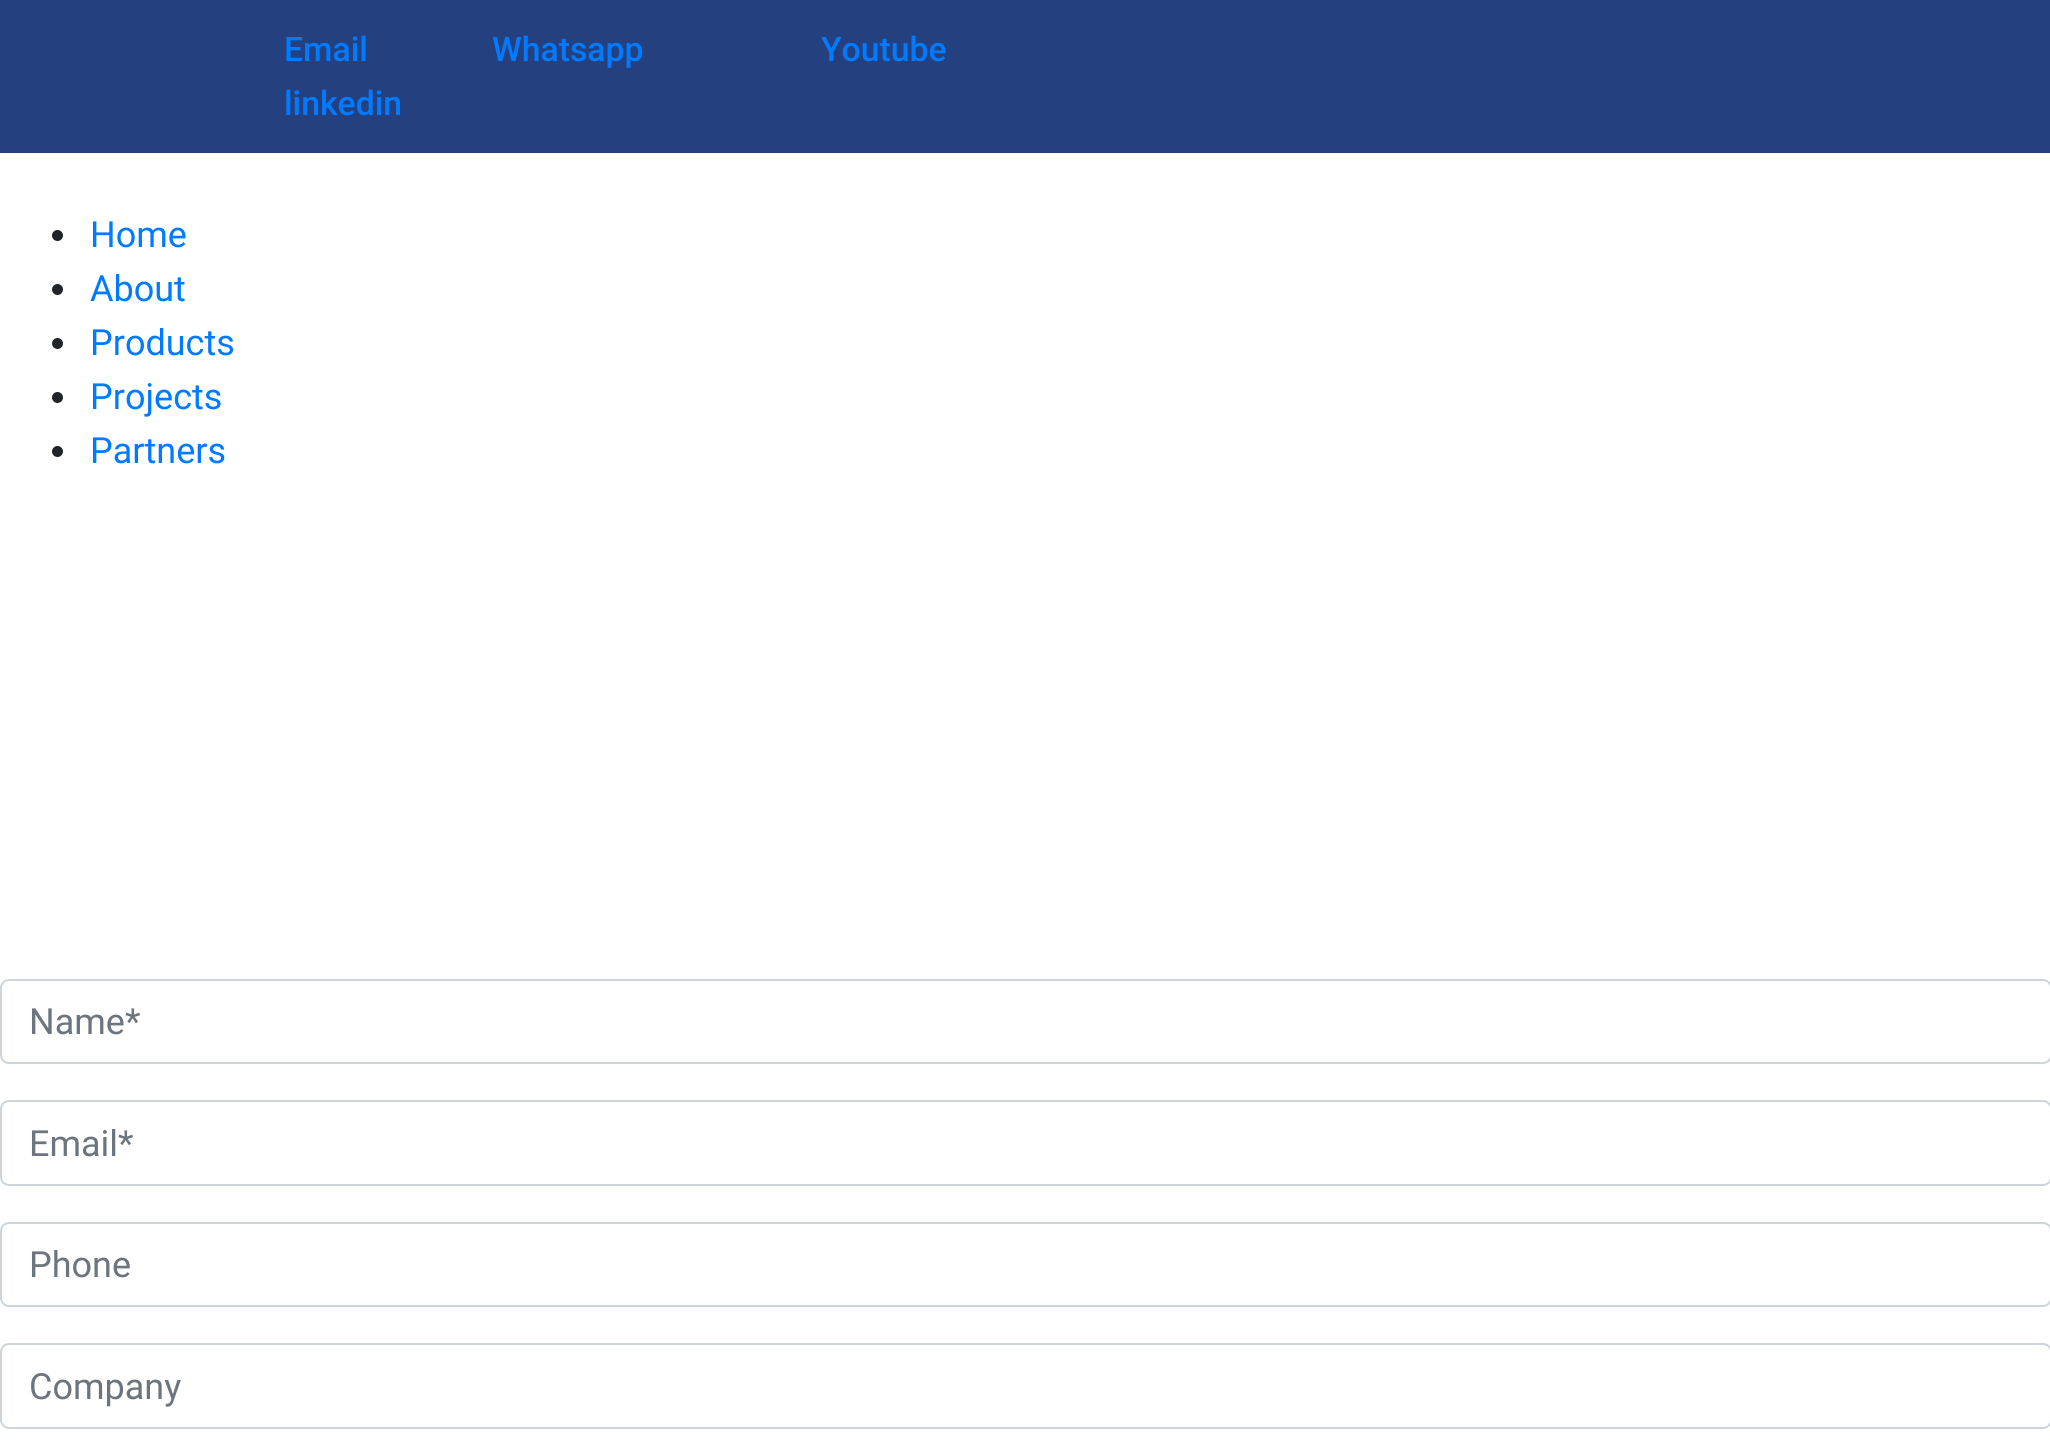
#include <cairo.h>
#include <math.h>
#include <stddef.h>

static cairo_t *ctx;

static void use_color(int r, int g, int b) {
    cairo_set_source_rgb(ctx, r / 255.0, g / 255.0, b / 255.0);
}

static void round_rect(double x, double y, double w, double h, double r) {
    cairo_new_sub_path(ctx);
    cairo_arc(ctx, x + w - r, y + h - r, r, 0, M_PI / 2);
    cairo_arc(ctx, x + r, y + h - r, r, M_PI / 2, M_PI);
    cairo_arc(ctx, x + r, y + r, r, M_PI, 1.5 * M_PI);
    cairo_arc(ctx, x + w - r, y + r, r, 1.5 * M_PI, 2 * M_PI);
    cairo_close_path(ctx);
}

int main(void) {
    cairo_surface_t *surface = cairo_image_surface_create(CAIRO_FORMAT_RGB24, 2050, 1441);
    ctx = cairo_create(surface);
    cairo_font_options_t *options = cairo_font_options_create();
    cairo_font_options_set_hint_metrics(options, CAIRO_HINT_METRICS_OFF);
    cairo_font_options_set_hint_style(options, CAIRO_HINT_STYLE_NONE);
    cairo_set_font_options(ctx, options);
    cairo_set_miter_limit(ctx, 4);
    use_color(255, 255, 255);
    cairo_paint(ctx);
    use_color(36, 64, 127);
    cairo_rectangle(ctx, 0, 0, 2050, 153);
    cairo_fill(ctx);
    cairo_select_font_face(ctx, "Roboto Medium", CAIRO_FONT_SLANT_NORMAL, CAIRO_FONT_WEIGHT_NORMAL);
    cairo_set_font_size(ctx, 33.75);
    use_color(0, 123, 255);
    cairo_move_to(ctx, 284, 61);
    cairo_show_text(ctx, "Email");
    cairo_move_to(ctx, 492, 61);
    cairo_show_text(ctx, "Whatsapp");
    cairo_move_to(ctx, 821, 61);
    cairo_show_text(ctx, "Youtube");
    cairo_move_to(ctx, 284, 115);
    cairo_show_text(ctx, "linkedin");
    use_color(33, 37, 41);
    cairo_new_path(ctx);
    cairo_arc(ctx, 57.5, 235.5, 5.5, 0, 2 * M_PI);
    cairo_fill(ctx);
    cairo_select_font_face(ctx, "Roboto", CAIRO_FONT_SLANT_NORMAL, CAIRO_FONT_WEIGHT_NORMAL);
    cairo_set_font_size(ctx, 36);
    use_color(0, 123, 255);
    cairo_move_to(ctx, 90, 247);
    cairo_show_text(ctx, "Home");
    use_color(33, 37, 41);
    cairo_new_path(ctx);
    cairo_arc(ctx, 57.5, 289.5, 5.5, 0, 2 * M_PI);
    cairo_fill(ctx);
    use_color(0, 123, 255);
    cairo_move_to(ctx, 90, 301);
    cairo_show_text(ctx, "About");
    use_color(33, 37, 41);
    cairo_new_path(ctx);
    cairo_arc(ctx, 57.5, 343.5, 5.5, 0, 2 * M_PI);
    cairo_fill(ctx);
    use_color(0, 123, 255);
    cairo_move_to(ctx, 90, 355);
    cairo_show_text(ctx, "Products");
    use_color(33, 37, 41);
    cairo_new_path(ctx);
    cairo_arc(ctx, 57.5, 397.5, 5.5, 0, 2 * M_PI);
    cairo_fill(ctx);
    use_color(0, 123, 255);
    cairo_move_to(ctx, 90, 409);
    cairo_show_text(ctx, "Projects");
    use_color(33, 37, 41);
    cairo_new_path(ctx);
    cairo_arc(ctx, 57.5, 451.5, 5.5, 0, 2 * M_PI);
    cairo_fill(ctx);
    use_color(0, 123, 255);
    cairo_move_to(ctx, 90, 463);
    cairo_show_text(ctx, "Partners");
    round_rect(1, 980, 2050, 83, 8);
    use_color(206, 212, 218);
    cairo_stroke(ctx);
    use_color(108, 117, 125);
    cairo_move_to(ctx, 29, 1034);
    cairo_show_text(ctx, "Name*");
    round_rect(1, 1101, 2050, 84, 8);
    use_color(206, 212, 218);
    cairo_stroke(ctx);
    use_color(108, 117, 125);
    cairo_move_to(ctx, 29, 1156);
    cairo_show_text(ctx, "Email*");
    round_rect(1, 1223, 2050, 83, 8);
    use_color(206, 212, 218);
    cairo_stroke(ctx);
    use_color(108, 117, 125);
    cairo_move_to(ctx, 29, 1277);
    cairo_show_text(ctx, "Phone");
    round_rect(1, 1344, 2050, 84, 8);
    use_color(206, 212, 218);
    cairo_stroke(ctx);
    use_color(108, 117, 125);
    cairo_move_to(ctx, 29, 1399);
    cairo_show_text(ctx, "Company");
    cairo_surface_write_to_png(surface, "result.png");
    cairo_font_options_destroy(options);
    cairo_destroy(ctx);
    cairo_surface_destroy(surface);
    return 0;
}
